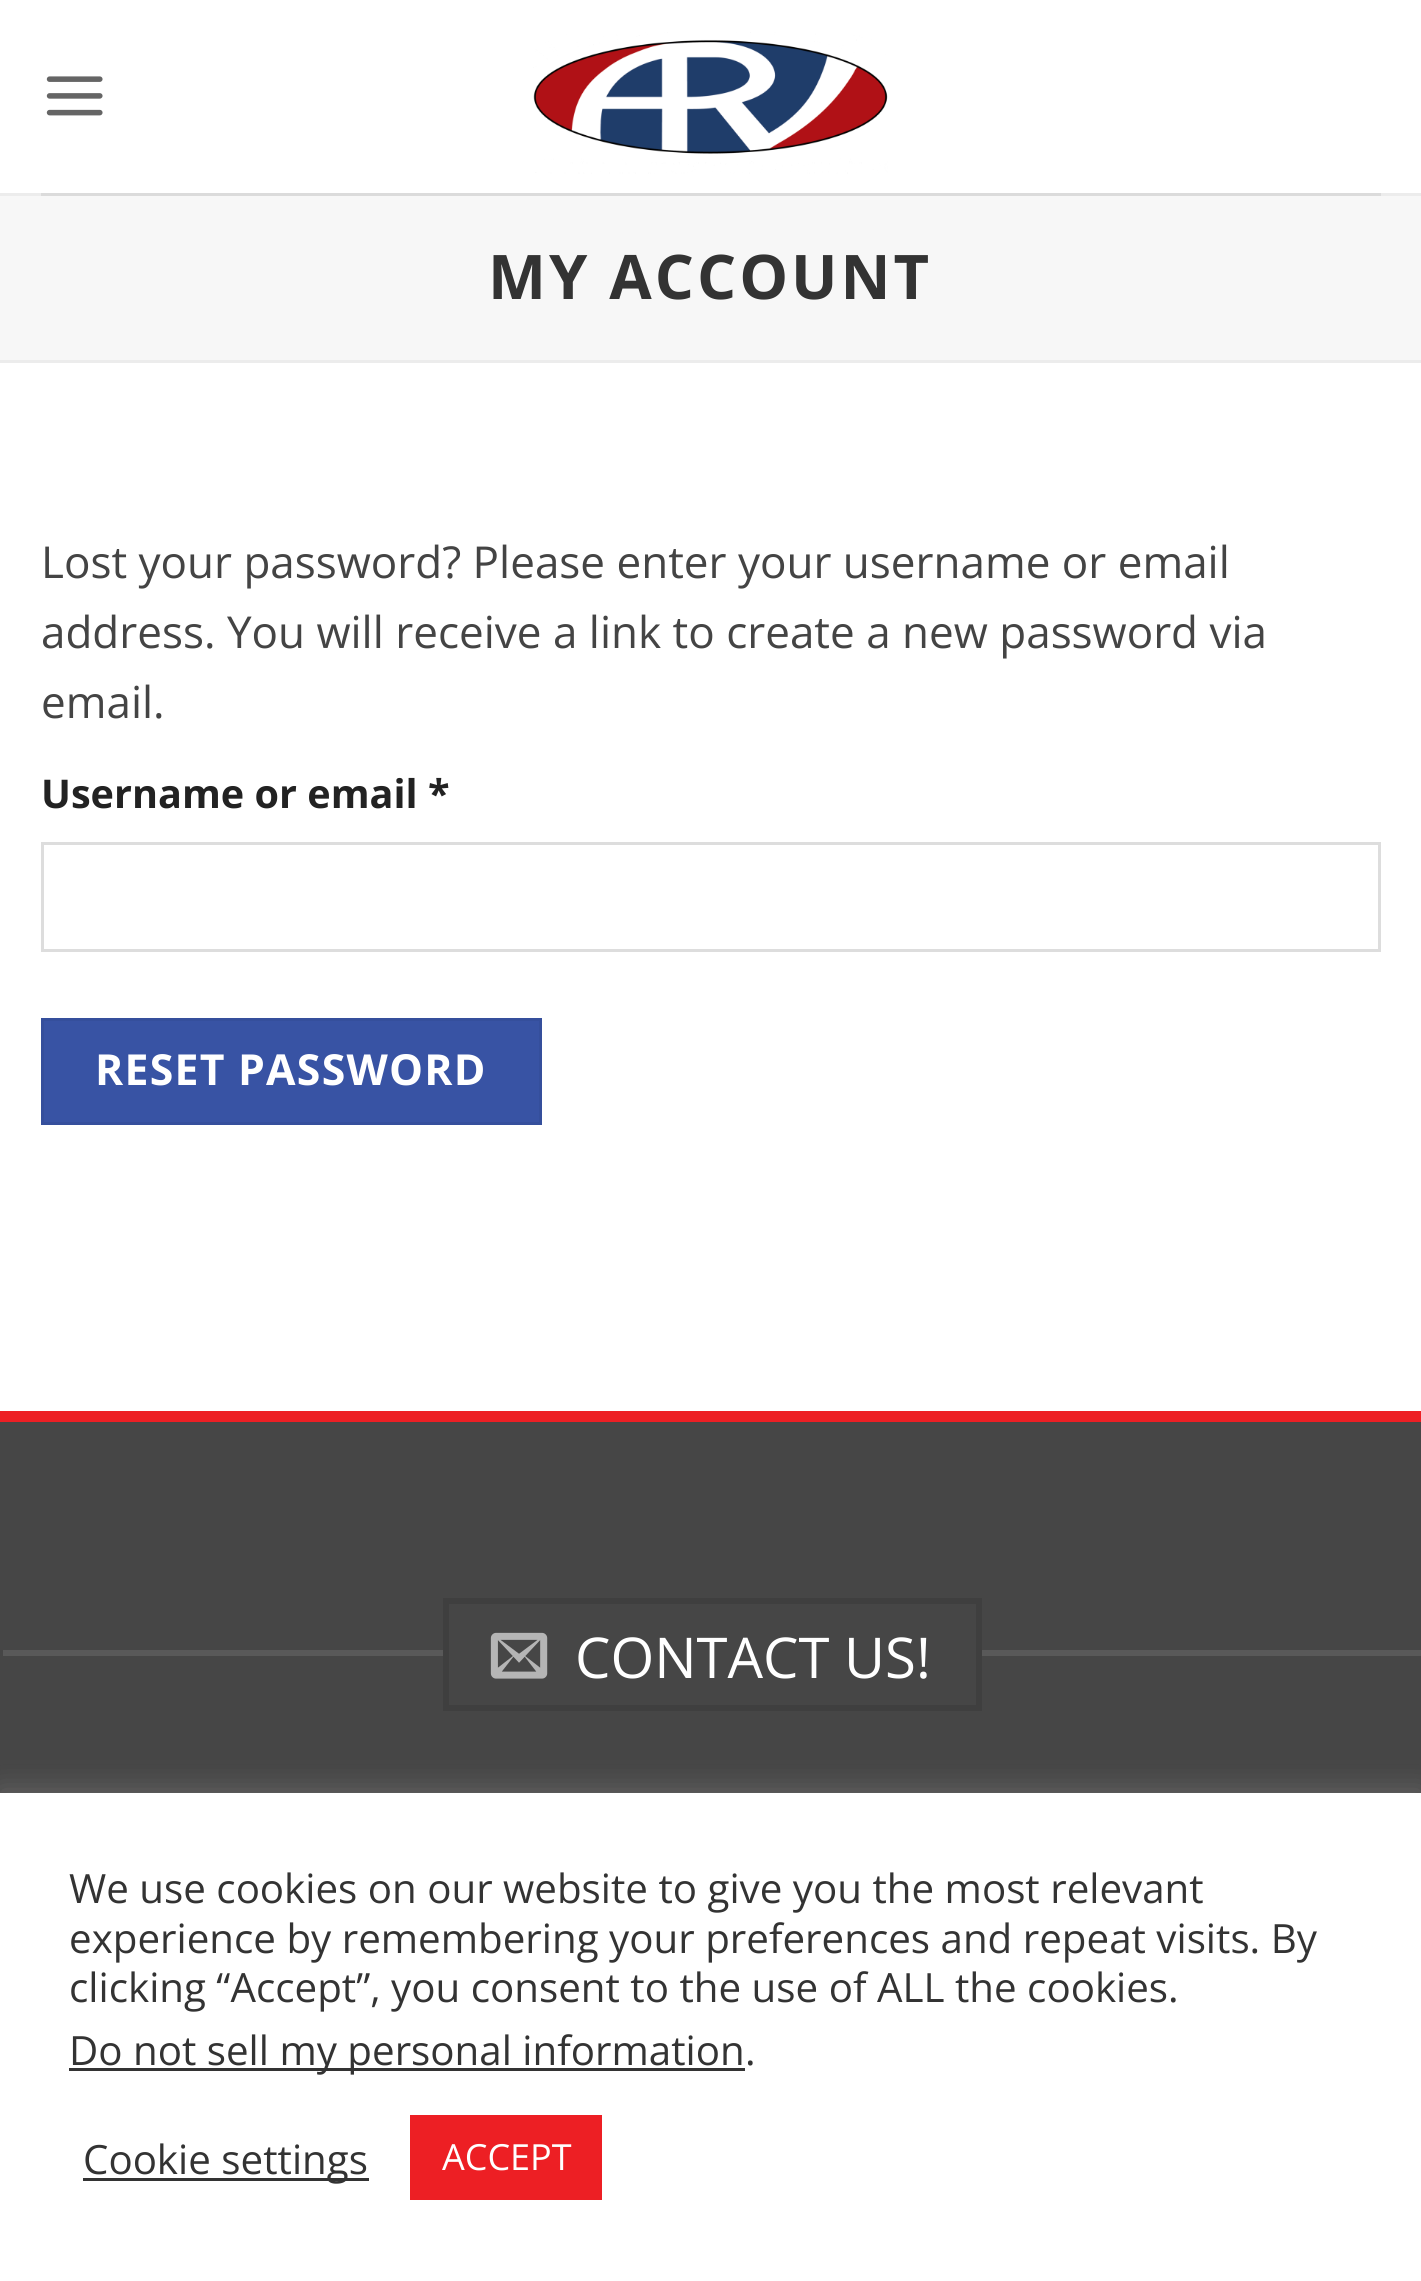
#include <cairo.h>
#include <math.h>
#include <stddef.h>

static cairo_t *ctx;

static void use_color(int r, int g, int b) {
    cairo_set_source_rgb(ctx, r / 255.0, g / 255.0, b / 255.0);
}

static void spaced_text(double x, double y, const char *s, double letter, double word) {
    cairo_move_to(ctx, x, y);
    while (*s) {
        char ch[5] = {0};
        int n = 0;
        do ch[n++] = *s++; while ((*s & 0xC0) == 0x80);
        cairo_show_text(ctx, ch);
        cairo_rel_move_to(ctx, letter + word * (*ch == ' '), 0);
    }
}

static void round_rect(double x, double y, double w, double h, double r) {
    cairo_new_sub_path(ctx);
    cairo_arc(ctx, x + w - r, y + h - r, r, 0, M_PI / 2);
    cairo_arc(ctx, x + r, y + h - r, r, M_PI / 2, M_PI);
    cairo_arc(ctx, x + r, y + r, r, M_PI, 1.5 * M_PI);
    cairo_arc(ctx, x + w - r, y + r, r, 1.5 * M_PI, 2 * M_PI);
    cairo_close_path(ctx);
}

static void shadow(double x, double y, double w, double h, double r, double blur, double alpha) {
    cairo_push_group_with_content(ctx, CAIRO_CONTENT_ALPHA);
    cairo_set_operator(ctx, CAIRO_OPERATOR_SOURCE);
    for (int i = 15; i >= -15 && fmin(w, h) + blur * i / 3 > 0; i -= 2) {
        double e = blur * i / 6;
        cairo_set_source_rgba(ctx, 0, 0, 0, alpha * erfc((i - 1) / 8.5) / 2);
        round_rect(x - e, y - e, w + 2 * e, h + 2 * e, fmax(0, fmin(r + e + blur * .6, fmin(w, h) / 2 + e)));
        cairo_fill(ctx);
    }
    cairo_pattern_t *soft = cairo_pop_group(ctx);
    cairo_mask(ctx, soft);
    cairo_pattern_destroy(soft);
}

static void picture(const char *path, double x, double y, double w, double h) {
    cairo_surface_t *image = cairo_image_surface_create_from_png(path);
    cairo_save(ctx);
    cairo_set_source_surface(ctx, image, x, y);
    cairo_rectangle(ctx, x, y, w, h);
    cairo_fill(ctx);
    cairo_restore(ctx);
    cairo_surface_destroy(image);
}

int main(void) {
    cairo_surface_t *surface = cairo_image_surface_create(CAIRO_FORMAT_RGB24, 1421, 2281);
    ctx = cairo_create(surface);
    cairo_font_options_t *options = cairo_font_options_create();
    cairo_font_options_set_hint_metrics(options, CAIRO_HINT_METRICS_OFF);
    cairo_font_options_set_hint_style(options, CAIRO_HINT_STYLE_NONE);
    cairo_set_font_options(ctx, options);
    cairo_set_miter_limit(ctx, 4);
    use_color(255, 255, 255);
    cairo_paint(ctx);
    picture("img1.png", 46, 76, 57, 40);
    picture("img2.png", 533, 32, 355, 142);
    use_color(236, 236, 236);
    cairo_rectangle(ctx, 0, 193, 1421, 3);
    cairo_fill(ctx);
    use_color(219, 219, 219);
    cairo_rectangle(ctx, 41, 193, 1340, 3);
    cairo_fill(ctx);
    use_color(247, 247, 247);
    cairo_rectangle(ctx, 0, 196, 1421, 164);
    cairo_fill(ctx);
    use_color(236, 236, 236);
    cairo_rectangle(ctx, 0, 360, 1421, 3);
    cairo_fill(ctx);
    cairo_select_font_face(ctx, "Open Sans", CAIRO_FONT_SLANT_NORMAL, CAIRO_FONT_WEIGHT_BOLD);
    cairo_set_font_size(ctx, 61.5);
    use_color(51, 51, 51);
    spaced_text(488, 299, "MY ACCOUNT", 3, 0);
    cairo_select_font_face(ctx, "Open Sans", CAIRO_FONT_SLANT_NORMAL, CAIRO_FONT_WEIGHT_NORMAL);
    cairo_set_font_size(ctx, 44);
    use_color(68, 68, 68);
    cairo_move_to(ctx, 41, 578);
    cairo_show_text(ctx, "Lost your password? Please enter your username or email");
    cairo_move_to(ctx, 41, 648);
    cairo_show_text(ctx, "address. You will receive a link to create a new password via");
    cairo_move_to(ctx, 41, 718);
    cairo_show_text(ctx, "email.");
    cairo_select_font_face(ctx, "Open Sans", CAIRO_FONT_SLANT_NORMAL, CAIRO_FONT_WEIGHT_BOLD);
    cairo_set_font_size(ctx, 39.6);
    use_color(34, 34, 34);
    cairo_move_to(ctx, 41, 808);
    cairo_show_text(ctx, "Username or email *");
    cairo_rectangle(ctx, 42.5, 843.5, 1337, 107);
    use_color(221, 221, 221);
    cairo_set_line_width(ctx, 3);
    cairo_stroke(ctx);
    use_color(56, 83, 164);
    cairo_rectangle(ctx, 42.5, 1019.5, 498, 104);
    cairo_fill_preserve(ctx);
    use_color(53, 79, 156);
    cairo_stroke(ctx);
    cairo_set_font_size(ctx, 42.75);
    use_color(255, 255, 255);
    spaced_text(95, 1085, "RESET PASSWORD", 1.25, 0);
    use_color(70, 70, 70);
    cairo_rectangle(ctx, 0, 1422, 1421, 371);
    cairo_fill(ctx);
    use_color(237, 31, 36);
    cairo_rectangle(ctx, 0, 1411, 1421, 11);
    cairo_fill(ctx);
    use_color(89, 89, 89);
    cairo_rectangle(ctx, 3, 1650, 440, 6);
    cairo_fill(ctx);
    cairo_rectangle(ctx, 446, 1601, 533, 107);
    use_color(63, 63, 63);
    cairo_set_line_width(ctx, 6);
    cairo_stroke(ctx);
    picture("img3.png", 490, 1632, 58, 47);
    cairo_select_font_face(ctx, "Open Sans", CAIRO_FONT_SLANT_NORMAL, CAIRO_FONT_WEIGHT_NORMAL);
    cairo_set_font_size(ctx, 56.25);
    use_color(255, 255, 255);
    cairo_move_to(ctx, 575, 1678);
    cairo_show_text(ctx, "CONTACT US!");
    use_color(89, 89, 89);
    cairo_rectangle(ctx, 982, 1650, 439, 6);
    cairo_fill(ctx);
    use_color(172, 171, 171);
    shadow(0, 1790, 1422, 490, 0, 14, 0.3);
    use_color(255, 255, 255);
    cairo_rectangle(ctx, 0, 1793, 1421, 488);
    cairo_fill(ctx);
    cairo_set_font_size(ctx, 40.3);
    use_color(51, 51, 51);
    cairo_move_to(ctx, 69, 1903);
    cairo_show_text(ctx, "We use cookies on our website to give you the most relevant");
    cairo_move_to(ctx, 69, 1953);
    cairo_show_text(ctx, "experience by remembering your preferences and repeat visits. By");
    cairo_move_to(ctx, 69, 2002);
    cairo_show_text(ctx, "clicking “Accept”, you consent to the use of ALL the cookies.");
    cairo_rectangle(ctx, 69, 2068, 676, 3);
    cairo_fill(ctx);
    cairo_move_to(ctx, 69, 2065);
    cairo_show_text(ctx, "Do not sell my personal information");
    cairo_move_to(ctx, 745, 2065);
    cairo_show_text(ctx, ".");
    cairo_rectangle(ctx, 83, 2178, 286, 3);
    cairo_fill(ctx);
    cairo_move_to(ctx, 83, 2174);
    cairo_show_text(ctx, "Cookie settings");
    use_color(237, 31, 36);
    cairo_rectangle(ctx, 410, 2115, 192, 85);
    cairo_fill(ctx);
    cairo_set_font_size(ctx, 36);
    use_color(255, 255, 255);
    cairo_move_to(ctx, 442, 2170);
    cairo_show_text(ctx, "ACCEPT");
    cairo_surface_write_to_png(surface, "result.png");
    cairo_font_options_destroy(options);
    cairo_destroy(ctx);
    cairo_surface_destroy(surface);
    return 0;
}
